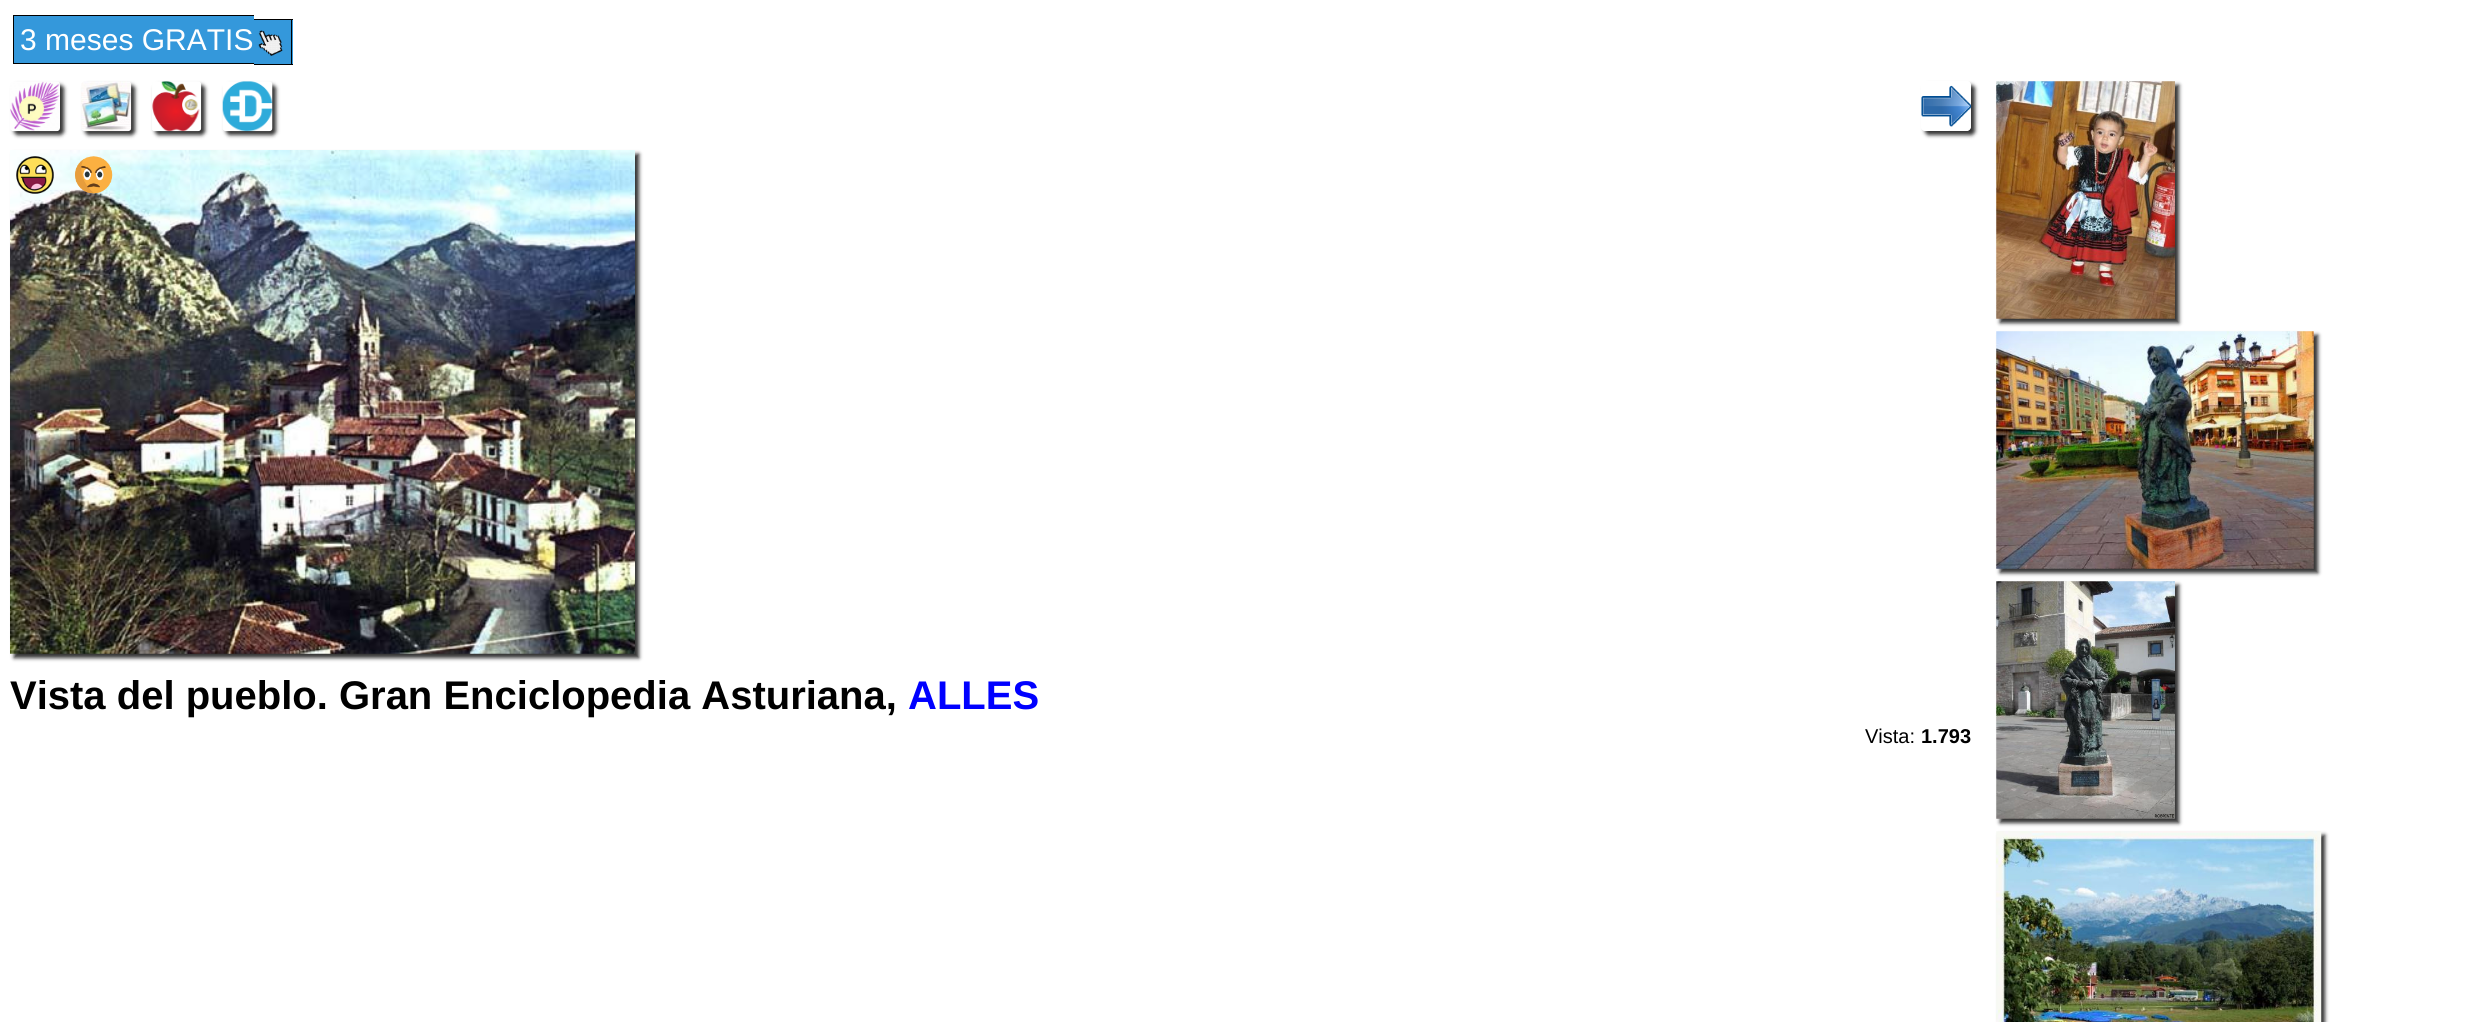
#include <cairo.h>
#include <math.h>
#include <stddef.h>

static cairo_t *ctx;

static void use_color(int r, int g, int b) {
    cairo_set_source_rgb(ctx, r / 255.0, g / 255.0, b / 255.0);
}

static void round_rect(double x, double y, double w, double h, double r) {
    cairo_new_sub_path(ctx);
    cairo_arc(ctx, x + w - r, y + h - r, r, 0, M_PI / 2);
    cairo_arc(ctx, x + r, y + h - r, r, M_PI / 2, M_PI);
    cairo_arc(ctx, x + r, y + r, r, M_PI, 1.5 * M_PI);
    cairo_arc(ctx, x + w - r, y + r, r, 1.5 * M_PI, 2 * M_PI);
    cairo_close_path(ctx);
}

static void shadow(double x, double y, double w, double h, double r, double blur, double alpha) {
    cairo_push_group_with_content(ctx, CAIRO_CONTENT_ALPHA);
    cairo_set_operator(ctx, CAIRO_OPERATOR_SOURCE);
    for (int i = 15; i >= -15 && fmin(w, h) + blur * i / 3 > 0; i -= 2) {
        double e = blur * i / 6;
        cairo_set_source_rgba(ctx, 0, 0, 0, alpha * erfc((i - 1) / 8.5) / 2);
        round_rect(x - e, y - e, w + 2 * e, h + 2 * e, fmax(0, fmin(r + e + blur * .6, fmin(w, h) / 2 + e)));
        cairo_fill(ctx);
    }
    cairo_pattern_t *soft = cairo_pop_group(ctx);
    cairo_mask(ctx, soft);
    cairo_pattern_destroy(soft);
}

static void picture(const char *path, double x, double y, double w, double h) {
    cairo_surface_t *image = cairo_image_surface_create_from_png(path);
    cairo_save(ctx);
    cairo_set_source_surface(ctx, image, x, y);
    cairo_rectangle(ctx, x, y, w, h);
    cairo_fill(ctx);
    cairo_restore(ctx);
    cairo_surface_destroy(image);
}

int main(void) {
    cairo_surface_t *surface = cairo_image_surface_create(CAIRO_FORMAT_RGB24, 2471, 1022);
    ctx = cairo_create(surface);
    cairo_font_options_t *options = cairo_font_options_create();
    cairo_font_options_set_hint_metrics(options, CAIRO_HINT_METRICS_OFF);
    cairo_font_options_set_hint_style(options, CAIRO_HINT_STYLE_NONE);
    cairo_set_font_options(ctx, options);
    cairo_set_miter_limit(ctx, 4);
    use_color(255, 255, 255);
    cairo_paint(ctx);
    use_color(52, 152, 219);
    cairo_rectangle(ctx, 14, 16, 240, 47);
    cairo_fill(ctx);
    cairo_select_font_face(ctx, "Liberation Sans", CAIRO_FONT_SLANT_NORMAL, CAIRO_FONT_WEIGHT_NORMAL);
    cairo_set_font_size(ctx, 30);
    use_color(255, 255, 255);
    cairo_move_to(ctx, 20, 50);
    cairo_show_text(ctx, "3 meses GRATIS");
    use_color(0, 0, 0);
    cairo_rectangle(ctx, 13, 15, 241, 1);
    cairo_fill(ctx);
    cairo_rectangle(ctx, 13, 63, 241, 1);
    cairo_fill(ctx);
    cairo_rectangle(ctx, 13, 15, 1, 49);
    cairo_fill(ctx);
    use_color(52, 152, 219);
    cairo_rectangle(ctx, 254, 20, 39, 44);
    cairo_fill(ctx);
    use_color(0, 0, 0);
    cairo_rectangle(ctx, 254, 19, 39, 1);
    cairo_fill(ctx);
    cairo_rectangle(ctx, 291, 19, 1, 46);
    cairo_fill(ctx);
    cairo_rectangle(ctx, 254, 64, 39, 1);
    cairo_fill(ctx);
    picture("img1.png", 258, 30, 25, 26);
    use_color(51, 51, 51);
    shadow(14, 85, 50, 50, 4, 2, 1);
    shadow(85, 85, 50, 50, 4, 2, 1);
    shadow(155, 85, 50, 50, 4, 2, 1);
    shadow(226, 85, 50, 50, 4, 2, 1);
    picture("img2.png", 10, 81, 50, 51);
    picture("img3.png", 81, 81, 51, 51);
    picture("img4.png", 152, 81, 50, 51);
    picture("img5.png", 222, 81, 51, 51);
    cairo_save(ctx);
    cairo_set_fill_rule(ctx, CAIRO_FILL_RULE_EVEN_ODD);
    cairo_new_path(ctx);
    cairo_move_to(ctx, 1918, 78);
    cairo_line_to(ctx, 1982, 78);
    cairo_line_to(ctx, 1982, 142);
    cairo_line_to(ctx, 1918, 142);
    cairo_close_path(ctx);
    cairo_move_to(ctx, 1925, 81);
    cairo_line_to(ctx, 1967, 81);
    cairo_curve_to(ctx, 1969, 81, 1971, 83, 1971, 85);
    cairo_line_to(ctx, 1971, 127);
    cairo_curve_to(ctx, 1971, 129, 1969, 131, 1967, 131);
    cairo_line_to(ctx, 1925, 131);
    cairo_curve_to(ctx, 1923, 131, 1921, 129, 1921, 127);
    cairo_line_to(ctx, 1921, 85);
    cairo_curve_to(ctx, 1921, 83, 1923, 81, 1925, 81);
    cairo_close_path(ctx);
    cairo_clip(ctx);
    shadow(1925, 85, 50, 50, 4, 2, 1);
    cairo_restore(ctx);
    picture("img6.png", 1921, 85, 51, 42);
    shadow(14, 154, 625, 504, 0, 2, 1);
    picture("img7.png", 10, 150, 625, 504);
    picture("img8.png", 16, 156, 38, 38);
    picture("img9.png", 75, 156, 38, 38);
    cairo_select_font_face(ctx, "Liberation Sans", CAIRO_FONT_SLANT_NORMAL, CAIRO_FONT_WEIGHT_BOLD);
    cairo_set_font_size(ctx, 40);
    use_color(0, 0, 0);
    cairo_move_to(ctx, 10, 709);
    cairo_show_text(ctx, "Vista del pueblo. Gran Enciclopedia Asturiana,");
    use_color(0, 0, 255);
    cairo_move_to(ctx, 908, 709);
    cairo_show_text(ctx, "ALLES");
    cairo_select_font_face(ctx, "Liberation Sans", CAIRO_FONT_SLANT_NORMAL, CAIRO_FONT_WEIGHT_NORMAL);
    cairo_set_font_size(ctx, 20);
    use_color(0, 0, 0);
    cairo_move_to(ctx, 1865, 743);
    cairo_show_text(ctx, "Vista:");
    cairo_select_font_face(ctx, "Liberation Sans", CAIRO_FONT_SLANT_NORMAL, CAIRO_FONT_WEIGHT_BOLD);
    cairo_move_to(ctx, 1921, 743);
    cairo_show_text(ctx, "1.793");
    use_color(51, 51, 51);
    shadow(2000, 85, 179, 238, 0, 2, 1);
    picture("img10.png", 1996, 81, 179, 238);
    shadow(2000, 335, 318, 238, 0, 2, 1);
    picture("img11.png", 1996, 331, 318, 238);
    shadow(2000, 585, 179, 238, 0, 2, 1);
    picture("img12.png", 1996, 581, 179, 238);
    shadow(2000, 835, 325, 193, 0, 2, 1);
    picture("img13.png", 1996, 831, 326, 191);
    cairo_surface_write_to_png(surface, "result.png");
    cairo_font_options_destroy(options);
    cairo_destroy(ctx);
    cairo_surface_destroy(surface);
    return 0;
}
